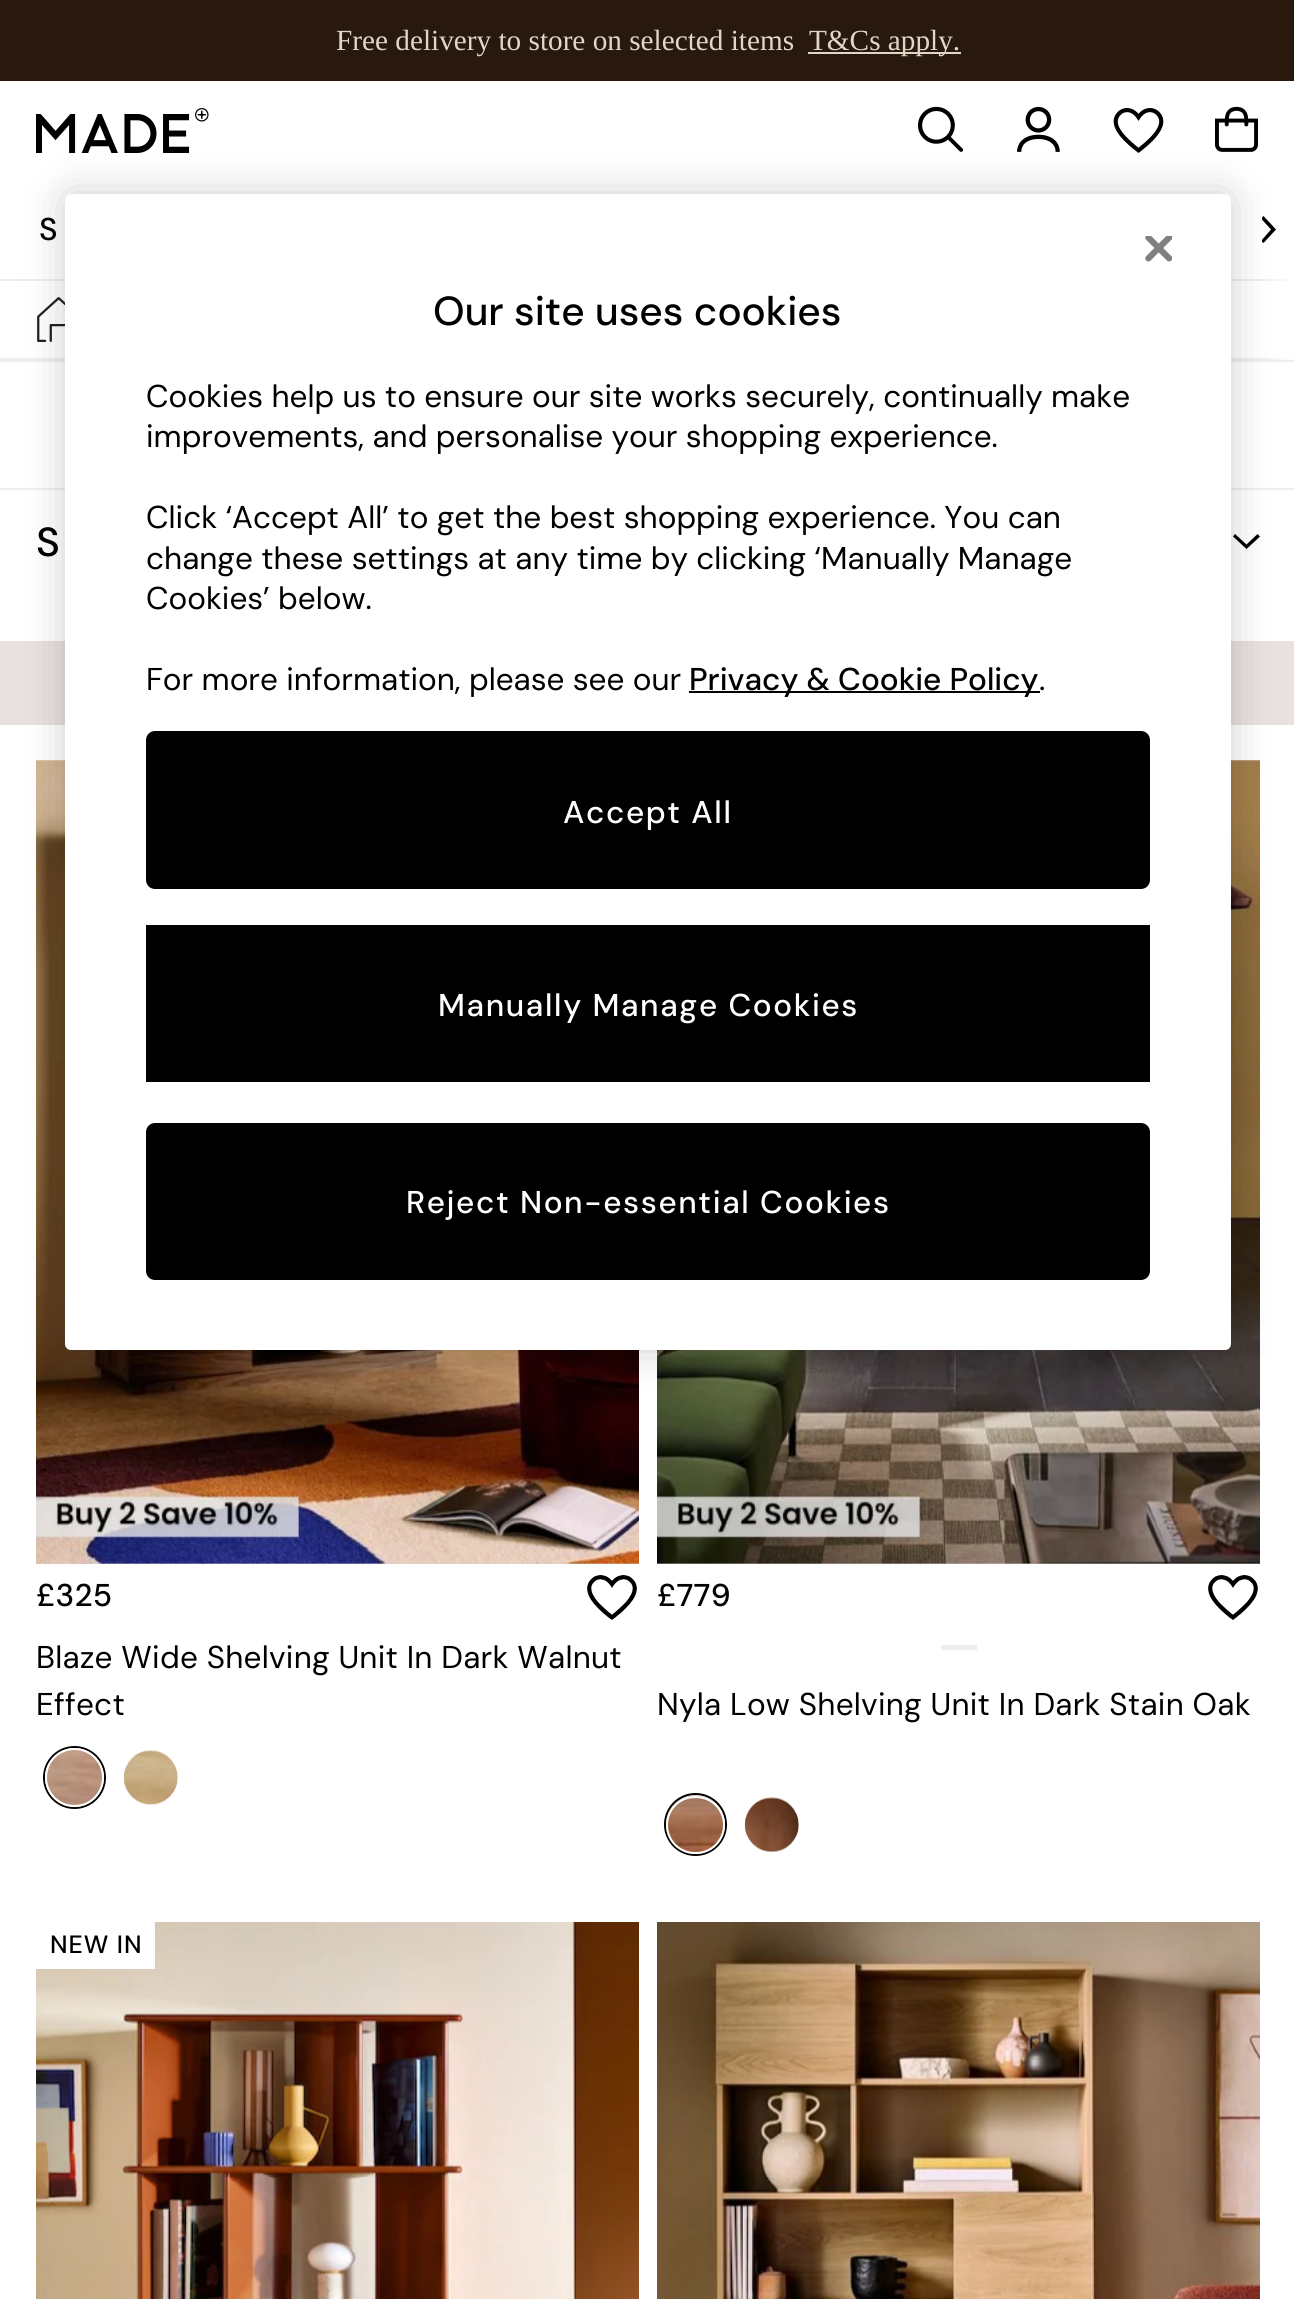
#include <cairo.h>
#include <math.h>
#include <stddef.h>

static cairo_t *ctx;

static void use_color(int r, int g, int b) {
    cairo_set_source_rgb(ctx, r / 255.0, g / 255.0, b / 255.0);
}

static void spaced_text(double x, double y, const char *s, double letter, double word) {
    cairo_move_to(ctx, x, y);
    while (*s) {
        char ch[5] = {0};
        int n = 0;
        do ch[n++] = *s++; while ((*s & 0xC0) == 0x80);
        cairo_show_text(ctx, ch);
        cairo_rel_move_to(ctx, letter + word * (*ch == ' '), 0);
    }
}

static void round_rect(double x, double y, double w, double h, double r) {
    cairo_new_sub_path(ctx);
    cairo_arc(ctx, x + w - r, y + h - r, r, 0, M_PI / 2);
    cairo_arc(ctx, x + r, y + h - r, r, M_PI / 2, M_PI);
    cairo_arc(ctx, x + r, y + r, r, M_PI, 1.5 * M_PI);
    cairo_arc(ctx, x + w - r, y + r, r, 1.5 * M_PI, 2 * M_PI);
    cairo_close_path(ctx);
}

static void shadow(double x, double y, double w, double h, double r, double blur, double alpha) {
    cairo_push_group_with_content(ctx, CAIRO_CONTENT_ALPHA);
    cairo_set_operator(ctx, CAIRO_OPERATOR_SOURCE);
    for (int i = 15; i >= -15 && fmin(w, h) + blur * i / 3 > 0; i -= 2) {
        double e = blur * i / 6;
        cairo_set_source_rgba(ctx, 0, 0, 0, alpha * erfc((i - 1) / 8.5) / 2);
        round_rect(x - e, y - e, w + 2 * e, h + 2 * e, fmax(0, fmin(r + e + blur * .6, fmin(w, h) / 2 + e)));
        cairo_fill(ctx);
    }
    cairo_pattern_t *soft = cairo_pop_group(ctx);
    cairo_mask(ctx, soft);
    cairo_pattern_destroy(soft);
}

static void picture(const char *path, double x, double y, double w, double h) {
    cairo_surface_t *image = cairo_image_surface_create_from_png(path);
    cairo_save(ctx);
    cairo_set_source_surface(ctx, image, x, y);
    cairo_rectangle(ctx, x, y, w, h);
    cairo_fill(ctx);
    cairo_restore(ctx);
    cairo_surface_destroy(image);
}

int main(void) {
    cairo_surface_t *surface = cairo_image_surface_create(CAIRO_FORMAT_RGB24, 1294, 2299);
    ctx = cairo_create(surface);
    cairo_font_options_t *options = cairo_font_options_create();
    cairo_font_options_set_hint_metrics(options, CAIRO_HINT_METRICS_OFF);
    cairo_font_options_set_hint_style(options, CAIRO_HINT_STYLE_NONE);
    cairo_set_font_options(ctx, options);
    cairo_set_miter_limit(ctx, 4);
    cairo_pattern_t *gradient;
    use_color(255, 255, 255);
    cairo_paint(ctx);
    use_color(40, 24, 13);
    cairo_rectangle(ctx, 0, 0, 1294, 81);
    cairo_fill(ctx);
    cairo_select_font_face(ctx, "Liberation Serif", CAIRO_FONT_SLANT_NORMAL, CAIRO_FONT_WEIGHT_NORMAL);
    cairo_set_font_size(ctx, 29.25);
    use_color(226, 215, 198);
    cairo_move_to(ctx, 336, 50);
    cairo_show_text(ctx, "Free delivery to store on selected items");
    cairo_rectangle(ctx, 808, 52, 153, 2);
    cairo_fill(ctx);
    cairo_move_to(ctx, 809, 50);
    cairo_show_text(ctx, "T&Cs apply.");
    picture("img1.png", 36, 108, 173, 45);
    picture("img2.png", 918, 106, 46, 46);
    picture("img3.png", 1017, 106, 43, 46);
    picture("img4.png", 1113, 108, 51, 45);
    picture("img5.png", 1215, 106, 43, 46);
    cairo_select_font_face(ctx, "DM Sans Medium", CAIRO_FONT_SLANT_NORMAL, CAIRO_FONT_WEIGHT_NORMAL);
    cairo_set_font_size(ctx, 31.5);
    use_color(0, 0, 0);
    cairo_move_to(ctx, 39, 240);
    cairo_show_text(ctx, "S");
    cairo_save(ctx);
    cairo_rectangle(ctx, 1262, 216, 16, 27);
    cairo_clip(ctx);
    cairo_set_fill_rule(ctx, CAIRO_FILL_RULE_EVEN_ODD);
    cairo_new_path(ctx);
    cairo_move_to(ctx, 1261, 218.5);
    cairo_line_to(ctx, 1263.5, 216);
    cairo_line_to(ctx, 1276, 229.5);
    cairo_line_to(ctx, 1263.5, 243);
    cairo_line_to(ctx, 1261, 241);
    cairo_line_to(ctx, 1271, 229.5);
    cairo_close_path(ctx);
    cairo_fill(ctx);
    cairo_restore(ctx);
    use_color(238, 238, 238);
    cairo_rectangle(ctx, 0, 279, 1294, 2);
    cairo_fill(ctx);
    cairo_rectangle(ctx, 0, 358, 1294, 4);
    cairo_fill(ctx);
    picture("img7.png", 37, 297, 28, 45);
    gradient = cairo_pattern_create_linear(1260, 320, 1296, 320);
    cairo_pattern_add_color_stop_rgba(gradient, 0, 1, 1, 1, 0);
    cairo_pattern_add_color_stop_rgba(gradient, 1, 1, 1, 1, 1);
    cairo_set_source(ctx, gradient);
    cairo_pattern_destroy(gradient);
    cairo_rectangle(ctx, 1265, 279, 29, 81);
    cairo_fill(ctx);
    use_color(238, 238, 238);
    cairo_rectangle(ctx, 0, 488, 1294, 2);
    cairo_fill(ctx);
    use_color(0, 0, 0);
    cairo_set_fill_rule(ctx, CAIRO_FILL_RULE_EVEN_ODD);
    cairo_new_path(ctx);
    cairo_move_to(ctx, 1257.5, 534);
    cairo_line_to(ctx, 1260, 536.5);
    cairo_line_to(ctx, 1246.5, 549);
    cairo_line_to(ctx, 1233, 536.5);
    cairo_line_to(ctx, 1235, 534);
    cairo_line_to(ctx, 1246.5, 544.5);
    cairo_close_path(ctx);
    cairo_fill(ctx);
    use_color(233, 224, 224);
    cairo_rectangle(ctx, 0, 641, 1294, 84);
    cairo_fill(ctx);
    use_color(209, 209, 209);
    cairo_rectangle(ctx, 36, 761, 603, 803);
    cairo_fill(ctx);
    picture("img8.png", 36, 760, 603, 804);
    cairo_rectangle(ctx, 657, 761, 603, 803);
    cairo_fill(ctx);
    picture("img12.png", 657, 760, 603, 804);
    use_color(0, 0, 0);
    shadow(65, 194, 1166, 1156, 6, 20, 0.2);
    use_color(255, 255, 255);
    round_rect(65, 194, 1166, 1156, 6);
    cairo_fill(ctx);
    picture("img6.png", 1145, 236, 27, 26);
    cairo_select_font_face(ctx, "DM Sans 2 Medium", CAIRO_FONT_SLANT_NORMAL, CAIRO_FONT_WEIGHT_NORMAL);
    cairo_set_font_size(ctx, 40.5);
    use_color(0, 0, 0);
    cairo_move_to(ctx, 433, 325);
    cairo_show_text(ctx, "Our site uses cookies");
    cairo_select_font_face(ctx, "DM Sans 2", CAIRO_FONT_SLANT_NORMAL, CAIRO_FONT_WEIGHT_NORMAL);
    cairo_set_font_size(ctx, 31.5);
    cairo_move_to(ctx, 146, 407);
    cairo_show_text(ctx, "Cookies help us to ensure our site works securely, continually make");
    cairo_move_to(ctx, 146, 447);
    cairo_show_text(ctx, "improvements, and personalise your shopping experience.");
    cairo_move_to(ctx, 146, 528);
    cairo_show_text(ctx, "Click ‘Accept All’ to get the best shopping experience. You can");
    cairo_move_to(ctx, 146, 569);
    cairo_show_text(ctx, "change these settings at any time by clicking ‘Manually Manage");
    cairo_move_to(ctx, 146, 609);
    cairo_show_text(ctx, "Cookies’ below.");
    cairo_move_to(ctx, 146, 690);
    cairo_show_text(ctx, "For more information, please see our");
    cairo_rectangle(ctx, 689, 691, 351, 2);
    cairo_fill(ctx);
    cairo_select_font_face(ctx, "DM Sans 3 Medium", CAIRO_FONT_SLANT_NORMAL, CAIRO_FONT_WEIGHT_NORMAL);
    cairo_move_to(ctx, 689, 690);
    cairo_show_text(ctx, "Privacy & Cookie Policy");
    cairo_select_font_face(ctx, "DM Sans 2", CAIRO_FONT_SLANT_NORMAL, CAIRO_FONT_WEIGHT_NORMAL);
    cairo_move_to(ctx, 1039, 690);
    cairo_show_text(ctx, ".");
    round_rect(147, 732, 1002, 156, 8);
    cairo_fill_preserve(ctx);
    cairo_stroke(ctx);
    cairo_select_font_face(ctx, "DM Sans 3 Medium", CAIRO_FONT_SLANT_NORMAL, CAIRO_FONT_WEIGHT_NORMAL);
    use_color(255, 255, 255);
    spaced_text(563, 823, "Accept All", 1.6, 0);
    use_color(0, 0, 0);
    cairo_rectangle(ctx, 146, 925, 1004, 157);
    cairo_fill(ctx);
    use_color(255, 255, 255);
    spaced_text(438, 1016, "Manually Manage Cookies", 1.6, 0);
    use_color(0, 0, 0);
    round_rect(147, 1124, 1002, 155, 8);
    cairo_fill_preserve(ctx);
    cairo_stroke(ctx);
    use_color(255, 255, 255);
    spaced_text(406, 1213, "Reject Non-essential Cookies", 1.6, 0);
    cairo_select_font_face(ctx, "DM Sans Medium", CAIRO_FONT_SLANT_NORMAL, CAIRO_FONT_WEIGHT_NORMAL);
    cairo_set_font_size(ctx, 40.5);
    use_color(0, 0, 0);
    spaced_text(36, 556, "S", 0.25, 0);
    picture("img9.png", 587, 1575, 50, 45);
    cairo_set_font_size(ctx, 31.5);
    spaced_text(36, 1606, "£325", 0.25, 0);
    cairo_select_font_face(ctx, "DM Sans", CAIRO_FONT_SLANT_NORMAL, CAIRO_FONT_WEIGHT_NORMAL);
    spaced_text(36, 1668, "Blaze Wide Shelving Unit In Dark Walnut", 0.25, 0);
    spaced_text(36, 1715, "Effect", 0.25, 0);
    cairo_new_path(ctx);
    cairo_arc(ctx, 74.5, 1777.5, 30.5, 0, 2 * M_PI);
    cairo_stroke(ctx);
    picture("img10.png", 45, 1748, 59, 60);
    cairo_arc(ctx, 74.5, 1777.5, 28.5, 0, 2 * M_PI);
    use_color(255, 255, 255);
    cairo_stroke(ctx);
    picture("img11.png", 123, 1750, 55, 55);
    picture("img9.png", 1208, 1575, 50, 45);
    cairo_select_font_face(ctx, "DM Sans Medium", CAIRO_FONT_SLANT_NORMAL, CAIRO_FONT_WEIGHT_NORMAL);
    use_color(0, 0, 0);
    spaced_text(657, 1606, "£779", 0.25, 0);
    use_color(238, 238, 238);
    cairo_rectangle(ctx, 941, 1645, 36, 5);
    cairo_fill(ctx);
    cairo_select_font_face(ctx, "DM Sans", CAIRO_FONT_SLANT_NORMAL, CAIRO_FONT_WEIGHT_NORMAL);
    use_color(0, 0, 0);
    spaced_text(657, 1715, "Nyla Low Shelving Unit In Dark Stain Oak", 0.25, 0);
    cairo_new_path(ctx);
    cairo_arc(ctx, 695.5, 1824.5, 30.5, 0, 2 * M_PI);
    cairo_stroke(ctx);
    picture("img13.png", 666, 1795, 59, 60);
    round_rect(667, 1797, 57, 56, 28);
    use_color(255, 255, 255);
    cairo_stroke(ctx);
    picture("img14.png", 744, 1797, 55, 56);
    picture("img15.png", 36, 1922, 603, 377);
    cairo_rectangle(ctx, 36, 1922, 119, 47);
    cairo_fill(ctx);
    cairo_select_font_face(ctx, "DM Sans Medium", CAIRO_FONT_SLANT_NORMAL, CAIRO_FONT_WEIGHT_NORMAL);
    cairo_set_font_size(ctx, 25);
    use_color(0, 0, 0);
    spaced_text(50, 1953, "NEW IN", 1, 0);
    picture("img16.png", 657, 1922, 603, 377);
    cairo_surface_write_to_png(surface, "result.png");
    cairo_font_options_destroy(options);
    cairo_destroy(ctx);
    cairo_surface_destroy(surface);
    return 0;
}
